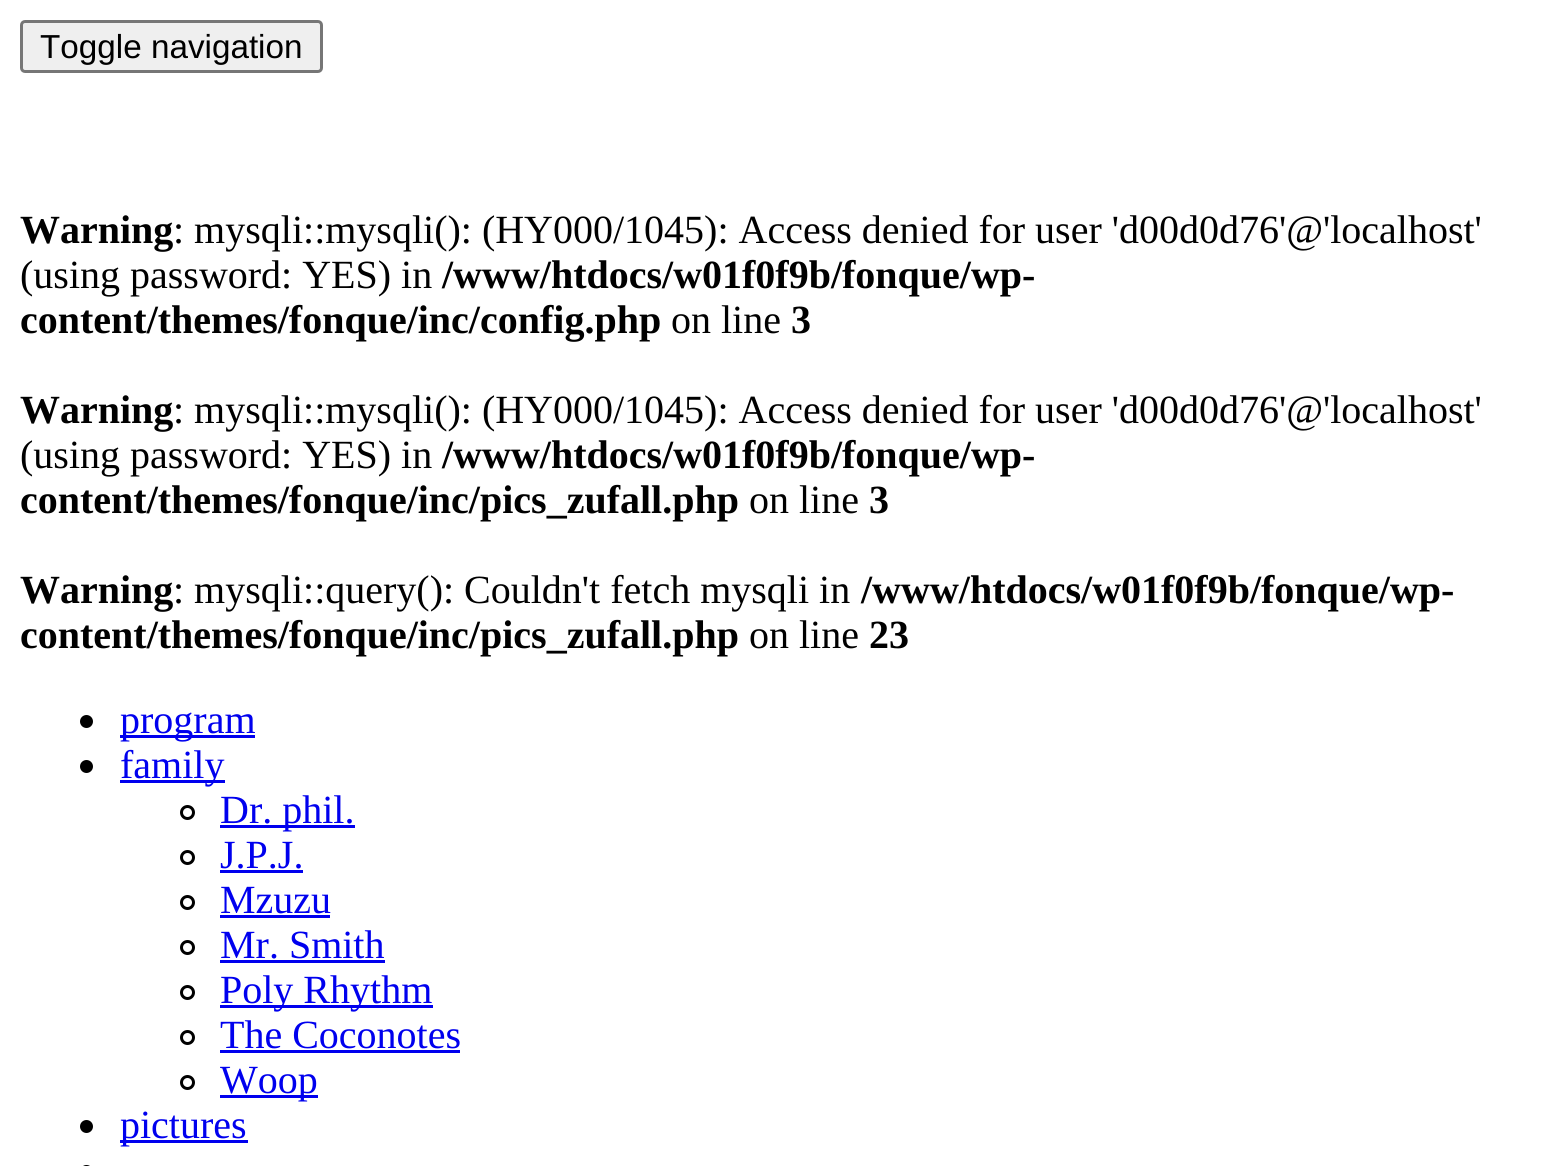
#include <cairo.h>
#include <math.h>
#include <stddef.h>

static cairo_t *ctx;

static void use_color(int r, int g, int b) {
    cairo_set_source_rgb(ctx, r / 255.0, g / 255.0, b / 255.0);
}

static void round_rect(double x, double y, double w, double h, double r) {
    cairo_new_sub_path(ctx);
    cairo_arc(ctx, x + w - r, y + h - r, r, 0, M_PI / 2);
    cairo_arc(ctx, x + r, y + h - r, r, M_PI / 2, M_PI);
    cairo_arc(ctx, x + r, y + r, r, M_PI, 1.5 * M_PI);
    cairo_arc(ctx, x + w - r, y + r, r, 1.5 * M_PI, 2 * M_PI);
    cairo_close_path(ctx);
}

int main(void) {
    cairo_surface_t *surface = cairo_image_surface_create(CAIRO_FORMAT_RGB24, 1564, 1166);
    ctx = cairo_create(surface);
    cairo_font_options_t *options = cairo_font_options_create();
    cairo_font_options_set_hint_metrics(options, CAIRO_HINT_METRICS_OFF);
    cairo_font_options_set_hint_style(options, CAIRO_HINT_STYLE_NONE);
    cairo_set_font_options(ctx, options);
    cairo_set_miter_limit(ctx, 4);
    use_color(255, 255, 255);
    cairo_paint(ctx);
    use_color(239, 239, 239);
    round_rect(21.5, 21.5, 300, 50, 3.5);
    cairo_fill_preserve(ctx);
    use_color(118, 118, 118);
    cairo_set_line_width(ctx, 3);
    cairo_stroke(ctx);
    cairo_select_font_face(ctx, "Liberation Sans", CAIRO_FONT_SLANT_NORMAL, CAIRO_FONT_WEIGHT_NORMAL);
    cairo_set_font_size(ctx, 33.25);
    use_color(0, 0, 0);
    cairo_move_to(ctx, 40, 58);
    cairo_show_text(ctx, "Toggle navigation");
    cairo_select_font_face(ctx, "Liberation Serif", CAIRO_FONT_SLANT_NORMAL, CAIRO_FONT_WEIGHT_BOLD);
    cairo_set_font_size(ctx, 40);
    cairo_move_to(ctx, 20, 243);
    cairo_show_text(ctx, "Warning");
    cairo_select_font_face(ctx, "Liberation Serif", CAIRO_FONT_SLANT_NORMAL, CAIRO_FONT_WEIGHT_NORMAL);
    cairo_move_to(ctx, 173, 243);
    cairo_show_text(ctx, ": mysqli::mysqli(): (HY000/1045): Access denied for user 'd00d0d76'@'localhost'");
    cairo_move_to(ctx, 20, 288);
    cairo_show_text(ctx, "(using password: YES) in");
    cairo_select_font_face(ctx, "Liberation Serif", CAIRO_FONT_SLANT_NORMAL, CAIRO_FONT_WEIGHT_BOLD);
    cairo_move_to(ctx, 442, 288);
    cairo_show_text(ctx, "/www/htdocs/w01f0f9b/fonque/wp-");
    cairo_move_to(ctx, 20, 333);
    cairo_show_text(ctx, "content/themes/fonque/inc/config.php");
    cairo_select_font_face(ctx, "Liberation Serif", CAIRO_FONT_SLANT_NORMAL, CAIRO_FONT_WEIGHT_NORMAL);
    cairo_move_to(ctx, 671, 333);
    cairo_show_text(ctx, "on line");
    cairo_select_font_face(ctx, "Liberation Serif", CAIRO_FONT_SLANT_NORMAL, CAIRO_FONT_WEIGHT_BOLD);
    cairo_move_to(ctx, 791, 333);
    cairo_show_text(ctx, "3");
    cairo_move_to(ctx, 20, 423);
    cairo_show_text(ctx, "Warning");
    cairo_select_font_face(ctx, "Liberation Serif", CAIRO_FONT_SLANT_NORMAL, CAIRO_FONT_WEIGHT_NORMAL);
    cairo_move_to(ctx, 173, 423);
    cairo_show_text(ctx, ": mysqli::mysqli(): (HY000/1045): Access denied for user 'd00d0d76'@'localhost'");
    cairo_move_to(ctx, 20, 468);
    cairo_show_text(ctx, "(using password: YES) in");
    cairo_select_font_face(ctx, "Liberation Serif", CAIRO_FONT_SLANT_NORMAL, CAIRO_FONT_WEIGHT_BOLD);
    cairo_move_to(ctx, 442, 468);
    cairo_show_text(ctx, "/www/htdocs/w01f0f9b/fonque/wp-");
    cairo_move_to(ctx, 20, 513);
    cairo_show_text(ctx, "content/themes/fonque/inc/pics_zufall.php");
    cairo_select_font_face(ctx, "Liberation Serif", CAIRO_FONT_SLANT_NORMAL, CAIRO_FONT_WEIGHT_NORMAL);
    cairo_move_to(ctx, 749, 513);
    cairo_show_text(ctx, "on line");
    cairo_select_font_face(ctx, "Liberation Serif", CAIRO_FONT_SLANT_NORMAL, CAIRO_FONT_WEIGHT_BOLD);
    cairo_move_to(ctx, 869, 513);
    cairo_show_text(ctx, "3");
    cairo_move_to(ctx, 20, 603);
    cairo_show_text(ctx, "Warning");
    cairo_select_font_face(ctx, "Liberation Serif", CAIRO_FONT_SLANT_NORMAL, CAIRO_FONT_WEIGHT_NORMAL);
    cairo_move_to(ctx, 173, 603);
    cairo_show_text(ctx, ": mysqli::query(): Couldn't fetch mysqli in");
    cairo_select_font_face(ctx, "Liberation Serif", CAIRO_FONT_SLANT_NORMAL, CAIRO_FONT_WEIGHT_BOLD);
    cairo_move_to(ctx, 861, 603);
    cairo_show_text(ctx, "/www/htdocs/w01f0f9b/fonque/wp-");
    cairo_move_to(ctx, 20, 648);
    cairo_show_text(ctx, "content/themes/fonque/inc/pics_zufall.php");
    cairo_select_font_face(ctx, "Liberation Serif", CAIRO_FONT_SLANT_NORMAL, CAIRO_FONT_WEIGHT_NORMAL);
    cairo_move_to(ctx, 749, 648);
    cairo_show_text(ctx, "on line");
    cairo_select_font_face(ctx, "Liberation Serif", CAIRO_FONT_SLANT_NORMAL, CAIRO_FONT_WEIGHT_BOLD);
    cairo_move_to(ctx, 869, 648);
    cairo_show_text(ctx, "23");
    cairo_new_path(ctx);
    cairo_arc(ctx, 86.5, 721.5, 6.5, 0, 2 * M_PI);
    cairo_fill(ctx);
    use_color(0, 0, 238);
    cairo_rectangle(ctx, 120, 735, 135, 3);
    cairo_fill(ctx);
    cairo_select_font_face(ctx, "Liberation Serif", CAIRO_FONT_SLANT_NORMAL, CAIRO_FONT_WEIGHT_NORMAL);
    cairo_move_to(ctx, 120, 733);
    cairo_show_text(ctx, "program");
    use_color(0, 0, 0);
    cairo_new_path(ctx);
    cairo_arc(ctx, 86.5, 766.5, 6.5, 0, 2 * M_PI);
    cairo_fill(ctx);
    use_color(0, 0, 238);
    cairo_rectangle(ctx, 120, 780, 105, 3);
    cairo_fill(ctx);
    cairo_move_to(ctx, 120, 778);
    cairo_show_text(ctx, "family");
    cairo_new_path(ctx);
    cairo_arc(ctx, 187.5, 812.5, 6, 0, 2 * M_PI);
    use_color(0, 0, 0);
    cairo_stroke(ctx);
    use_color(0, 0, 238);
    cairo_rectangle(ctx, 220, 825, 135, 3);
    cairo_fill(ctx);
    cairo_move_to(ctx, 220, 823);
    cairo_show_text(ctx, "Dr. phil.");
    cairo_new_path(ctx);
    cairo_arc(ctx, 187.5, 857.5, 6, 0, 2 * M_PI);
    use_color(0, 0, 0);
    cairo_stroke(ctx);
    use_color(0, 0, 238);
    cairo_move_to(ctx, 220, 868);
    cairo_show_text(ctx, "J.P.J.");
    cairo_rectangle(ctx, 220, 870, 83, 3);
    cairo_fill(ctx);
    cairo_arc(ctx, 187.5, 902.5, 6, 0, 2 * M_PI);
    use_color(0, 0, 0);
    cairo_stroke(ctx);
    use_color(0, 0, 238);
    cairo_move_to(ctx, 220, 913);
    cairo_show_text(ctx, "Mzuzu");
    cairo_rectangle(ctx, 220, 915, 110, 3);
    cairo_fill(ctx);
    cairo_arc(ctx, 187.5, 947.5, 6, 0, 2 * M_PI);
    use_color(0, 0, 0);
    cairo_stroke(ctx);
    use_color(0, 0, 238);
    cairo_move_to(ctx, 220, 958);
    cairo_show_text(ctx, "Mr. Smith");
    cairo_rectangle(ctx, 220, 960, 165, 3);
    cairo_fill(ctx);
    cairo_arc(ctx, 187.5, 992.5, 6, 0, 2 * M_PI);
    use_color(0, 0, 0);
    cairo_stroke(ctx);
    use_color(0, 0, 238);
    cairo_rectangle(ctx, 220, 1005, 213, 3);
    cairo_fill(ctx);
    cairo_move_to(ctx, 220, 1003);
    cairo_show_text(ctx, "Poly Rhythm");
    cairo_new_path(ctx);
    cairo_arc(ctx, 187.5, 1037.5, 6, 0, 2 * M_PI);
    use_color(0, 0, 0);
    cairo_stroke(ctx);
    use_color(0, 0, 238);
    cairo_move_to(ctx, 220, 1048);
    cairo_show_text(ctx, "The Coconotes");
    cairo_rectangle(ctx, 220, 1050, 240, 3);
    cairo_fill(ctx);
    cairo_arc(ctx, 187.5, 1082.5, 6, 0, 2 * M_PI);
    use_color(0, 0, 0);
    cairo_stroke(ctx);
    use_color(0, 0, 238);
    cairo_rectangle(ctx, 220, 1095, 98, 3);
    cairo_fill(ctx);
    cairo_move_to(ctx, 220, 1093);
    cairo_show_text(ctx, "Woop");
    use_color(0, 0, 0);
    cairo_new_path(ctx);
    cairo_arc(ctx, 86.5, 1126.5, 6.5, 0, 2 * M_PI);
    cairo_fill(ctx);
    use_color(0, 0, 238);
    cairo_rectangle(ctx, 120, 1140, 128, 3);
    cairo_fill(ctx);
    cairo_move_to(ctx, 120, 1138);
    cairo_show_text(ctx, "pictures");
    use_color(0, 0, 0);
    round_rect(80, 1165, 13, 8, 6.5);
    cairo_fill(ctx);
    cairo_surface_write_to_png(surface, "result.png");
    cairo_font_options_destroy(options);
    cairo_destroy(ctx);
    cairo_surface_destroy(surface);
    return 0;
}
